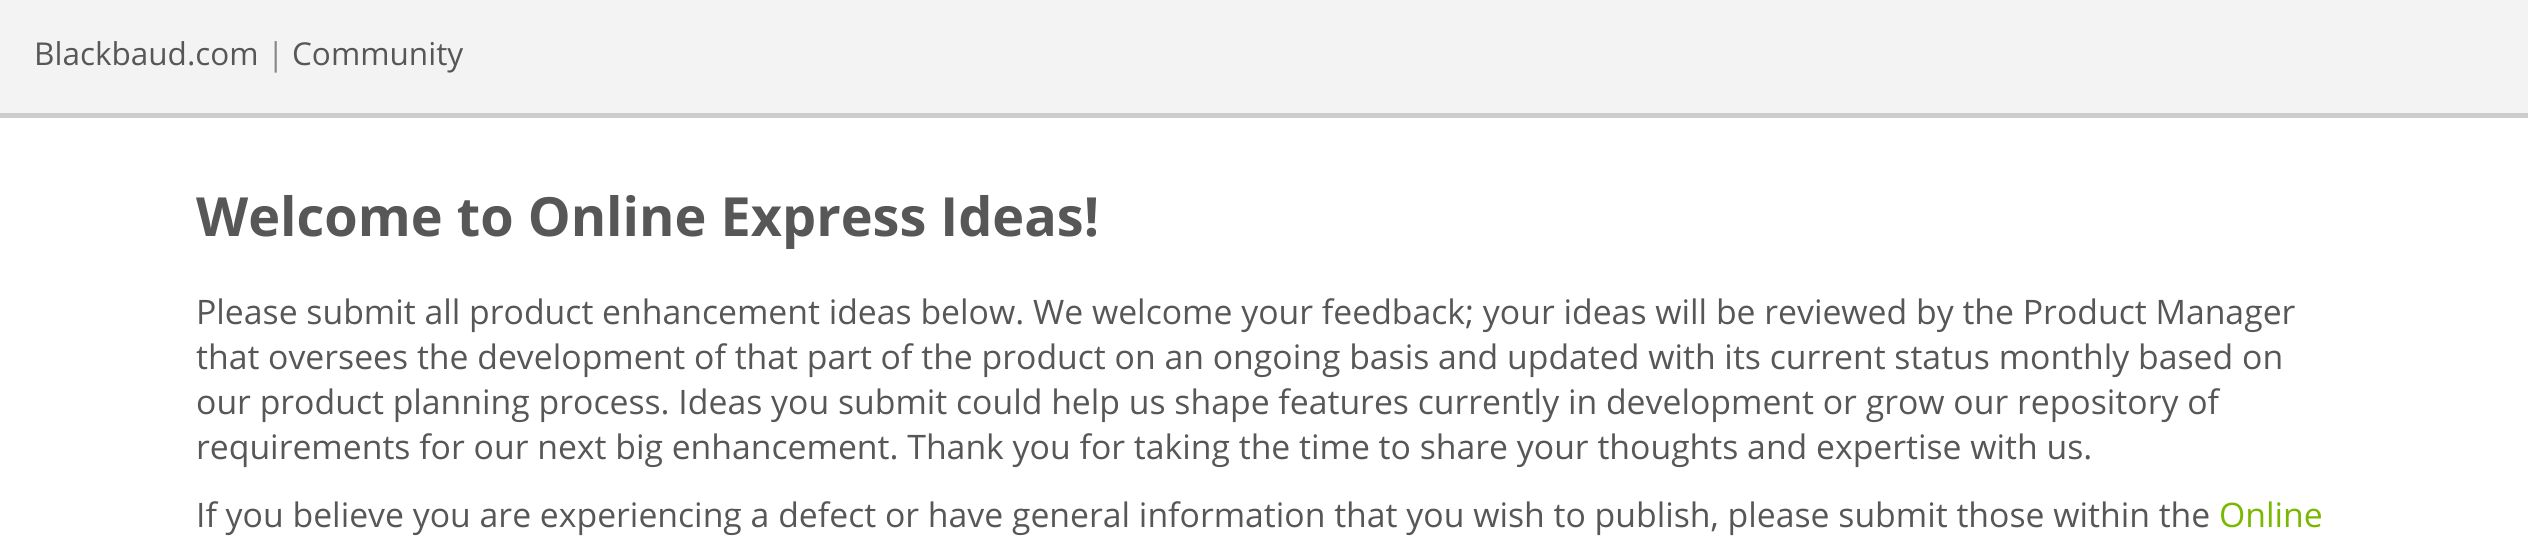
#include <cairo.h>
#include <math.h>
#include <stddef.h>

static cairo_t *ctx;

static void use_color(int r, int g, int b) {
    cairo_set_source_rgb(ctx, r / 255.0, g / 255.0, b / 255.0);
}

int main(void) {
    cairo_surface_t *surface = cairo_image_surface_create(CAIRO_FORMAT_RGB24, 2528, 543);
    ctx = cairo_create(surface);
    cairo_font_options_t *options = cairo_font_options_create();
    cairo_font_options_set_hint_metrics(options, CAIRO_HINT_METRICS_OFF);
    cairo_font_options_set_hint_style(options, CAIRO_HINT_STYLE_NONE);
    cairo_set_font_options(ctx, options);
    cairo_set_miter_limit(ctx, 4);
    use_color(255, 255, 255);
    cairo_paint(ctx);
    use_color(243, 243, 244);
    cairo_rectangle(ctx, 0, 0, 2528, 113);
    cairo_fill(ctx);
    use_color(204, 204, 204);
    cairo_rectangle(ctx, 0, 113, 2528, 5);
    cairo_fill(ctx);
    cairo_select_font_face(ctx, "Open Sans", CAIRO_FONT_SLANT_NORMAL, CAIRO_FONT_WEIGHT_NORMAL);
    cairo_set_font_size(ctx, 31.5);
    use_color(87, 87, 87);
    cairo_move_to(ctx, 34, 65);
    cairo_show_text(ctx, "Blackbaud.com");
    use_color(136, 136, 136);
    cairo_move_to(ctx, 267, 65);
    cairo_show_text(ctx, "|");
    use_color(87, 87, 87);
    cairo_move_to(ctx, 292, 65);
    cairo_show_text(ctx, "Community");
    cairo_select_font_face(ctx, "Open Sans", CAIRO_FONT_SLANT_NORMAL, CAIRO_FONT_WEIGHT_BOLD);
    cairo_set_font_size(ctx, 54);
    cairo_move_to(ctx, 196, 236);
    cairo_show_text(ctx, "Welcome to Online Express Ideas!");
    cairo_select_font_face(ctx, "Open Sans", CAIRO_FONT_SLANT_NORMAL, CAIRO_FONT_WEIGHT_NORMAL);
    cairo_set_font_size(ctx, 33.75);
    cairo_move_to(ctx, 196, 324);
    cairo_show_text(ctx, "Please submit all product enhancement ideas below. We welcome your feedback; your ideas will be reviewed by the Product Manager");
    cairo_move_to(ctx, 196, 369);
    cairo_show_text(ctx, "that oversees the development of that part of the product on an ongoing basis and updated with its current status monthly based on");
    cairo_move_to(ctx, 196, 414);
    cairo_show_text(ctx, "our product planning process. Ideas you submit could help us shape features currently in development or grow our repository of");
    cairo_move_to(ctx, 196, 459);
    cairo_show_text(ctx, "requirements for our next big enhancement. Thank you for taking the time to share your thoughts and expertise with us.");
    cairo_move_to(ctx, 196, 527);
    cairo_show_text(ctx, "If you believe you are experiencing a defect or have general information that you wish to publish, please submit those within the");
    use_color(122, 184, 0);
    cairo_move_to(ctx, 2219, 527);
    cairo_show_text(ctx, "Online");
    cairo_surface_write_to_png(surface, "result.png");
    cairo_font_options_destroy(options);
    cairo_destroy(ctx);
    cairo_surface_destroy(surface);
    return 0;
}
